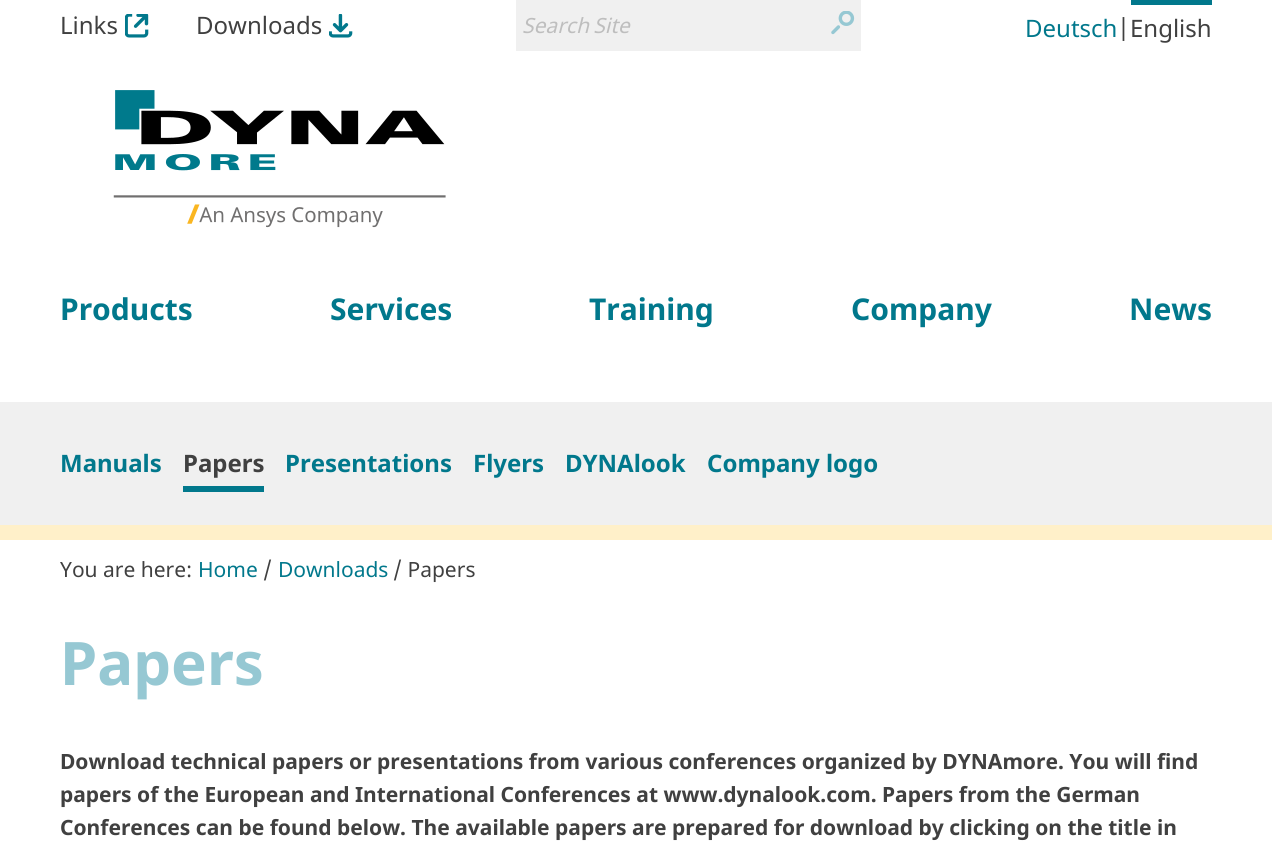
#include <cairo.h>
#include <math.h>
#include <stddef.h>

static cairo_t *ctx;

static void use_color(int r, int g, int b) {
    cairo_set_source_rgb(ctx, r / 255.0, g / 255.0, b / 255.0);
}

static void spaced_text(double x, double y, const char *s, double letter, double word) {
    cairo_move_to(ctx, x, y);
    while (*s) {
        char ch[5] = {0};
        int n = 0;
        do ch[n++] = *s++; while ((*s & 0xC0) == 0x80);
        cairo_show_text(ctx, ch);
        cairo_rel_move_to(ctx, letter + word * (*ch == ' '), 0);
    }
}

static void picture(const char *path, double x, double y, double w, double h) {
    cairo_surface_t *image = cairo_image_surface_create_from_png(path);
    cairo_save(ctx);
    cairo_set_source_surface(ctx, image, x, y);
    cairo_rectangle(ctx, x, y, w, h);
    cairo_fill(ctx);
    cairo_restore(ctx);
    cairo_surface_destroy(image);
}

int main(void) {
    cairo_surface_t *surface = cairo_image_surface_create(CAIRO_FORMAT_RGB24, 1272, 849);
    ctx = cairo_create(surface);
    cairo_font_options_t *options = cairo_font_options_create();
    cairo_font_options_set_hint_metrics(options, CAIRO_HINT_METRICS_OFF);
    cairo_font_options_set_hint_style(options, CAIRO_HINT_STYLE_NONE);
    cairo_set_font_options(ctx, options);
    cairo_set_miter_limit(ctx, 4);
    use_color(255, 255, 255);
    cairo_paint(ctx);
    cairo_select_font_face(ctx, "Noto Sans", CAIRO_FONT_SLANT_NORMAL, CAIRO_FONT_WEIGHT_NORMAL);
    cairo_set_font_size(ctx, 24);
    use_color(64, 64, 64);
    cairo_move_to(ctx, 60, 34);
    cairo_show_text(ctx, "Links");
    picture("img1.png", 125, 14, 24, 24);
    cairo_move_to(ctx, 196, 34);
    cairo_show_text(ctx, "Downloads");
    picture("img2.png", 329, 14, 24, 24);
    use_color(240, 240, 240);
    cairo_rectangle(ctx, 516, 0, 345, 51);
    cairo_fill(ctx);
    cairo_select_font_face(ctx, "Noto Sans", CAIRO_FONT_SLANT_ITALIC, CAIRO_FONT_WEIGHT_NORMAL);
    cairo_set_font_size(ctx, 21);
    use_color(190, 190, 190);
    spaced_text(522, 33, "Search Site", 0, -1);
    picture("img3.png", 831, 11, 24, 24);
    use_color(1, 120, 140);
    cairo_rectangle(ctx, 1131, 0, 81, 5);
    cairo_fill(ctx);
    cairo_select_font_face(ctx, "Noto Sans", CAIRO_FONT_SLANT_NORMAL, CAIRO_FONT_WEIGHT_NORMAL);
    cairo_set_font_size(ctx, 24);
    cairo_move_to(ctx, 1025, 37);
    cairo_show_text(ctx, "Deutsch");
    use_color(64, 64, 64);
    cairo_move_to(ctx, 1117, 37);
    cairo_show_text(ctx, "|English");
    picture("img4.png", 113, 90, 333, 138);
    cairo_select_font_face(ctx, "Noto Sans", CAIRO_FONT_SLANT_NORMAL, CAIRO_FONT_WEIGHT_BOLD);
    cairo_set_font_size(ctx, 30);
    use_color(1, 120, 140);
    cairo_move_to(ctx, 60, 320);
    cairo_show_text(ctx, "Products");
    cairo_move_to(ctx, 330, 320);
    cairo_show_text(ctx, "Services");
    cairo_move_to(ctx, 589, 320);
    cairo_show_text(ctx, "Training");
    cairo_move_to(ctx, 851, 320);
    cairo_show_text(ctx, "Company");
    cairo_move_to(ctx, 1129, 320);
    cairo_show_text(ctx, "News");
    use_color(240, 240, 240);
    cairo_rectangle(ctx, 0, 402, 1272, 123);
    cairo_fill(ctx);
    use_color(255, 240, 201);
    cairo_rectangle(ctx, 0, 525, 1272, 15);
    cairo_fill(ctx);
    cairo_set_font_size(ctx, 24);
    use_color(1, 120, 140);
    cairo_move_to(ctx, 60, 472);
    cairo_show_text(ctx, "Manuals");
    cairo_rectangle(ctx, 183, 486, 81, 6);
    cairo_fill(ctx);
    use_color(64, 64, 64);
    cairo_move_to(ctx, 183, 472);
    cairo_show_text(ctx, "Papers");
    use_color(1, 120, 140);
    cairo_move_to(ctx, 285, 472);
    cairo_show_text(ctx, "Presentations");
    cairo_move_to(ctx, 473, 472);
    cairo_show_text(ctx, "Flyers");
    cairo_move_to(ctx, 565, 472);
    cairo_show_text(ctx, "DYNAlook");
    cairo_move_to(ctx, 707, 472);
    cairo_show_text(ctx, "Company logo");
    cairo_select_font_face(ctx, "Noto Sans", CAIRO_FONT_SLANT_NORMAL, CAIRO_FONT_WEIGHT_NORMAL);
    cairo_set_font_size(ctx, 21);
    use_color(64, 64, 64);
    cairo_move_to(ctx, 60, 577);
    cairo_show_text(ctx, "You are here:");
    use_color(1, 120, 140);
    cairo_move_to(ctx, 198, 577);
    cairo_show_text(ctx, "Home");
    use_color(64, 64, 64);
    cairo_move_to(ctx, 263, 577);
    cairo_show_text(ctx, "/");
    use_color(1, 120, 140);
    cairo_move_to(ctx, 278, 577);
    cairo_show_text(ctx, "Downloads");
    use_color(64, 64, 64);
    cairo_move_to(ctx, 393, 577);
    cairo_show_text(ctx, "/ Papers");
    cairo_select_font_face(ctx, "Noto Sans", CAIRO_FONT_SLANT_NORMAL, CAIRO_FONT_WEIGHT_BOLD);
    cairo_set_font_size(ctx, 60);
    use_color(150, 200, 211);
    cairo_move_to(ctx, 60, 685);
    cairo_show_text(ctx, "Papers");
    cairo_set_font_size(ctx, 21);
    use_color(64, 64, 64);
    cairo_move_to(ctx, 60, 769);
    cairo_show_text(ctx, "Download technical papers or presentations from various conferences organized by DYNAmore. You will find");
    cairo_move_to(ctx, 60, 802);
    cairo_show_text(ctx, "papers of the European and International Conferences at www.dynalook.com. Papers from the German");
    cairo_move_to(ctx, 60, 835);
    cairo_show_text(ctx, "Conferences can be found below. The available papers are prepared for download by clicking on the title in");
    cairo_surface_write_to_png(surface, "result.png");
    cairo_font_options_destroy(options);
    cairo_destroy(ctx);
    cairo_surface_destroy(surface);
    return 0;
}
